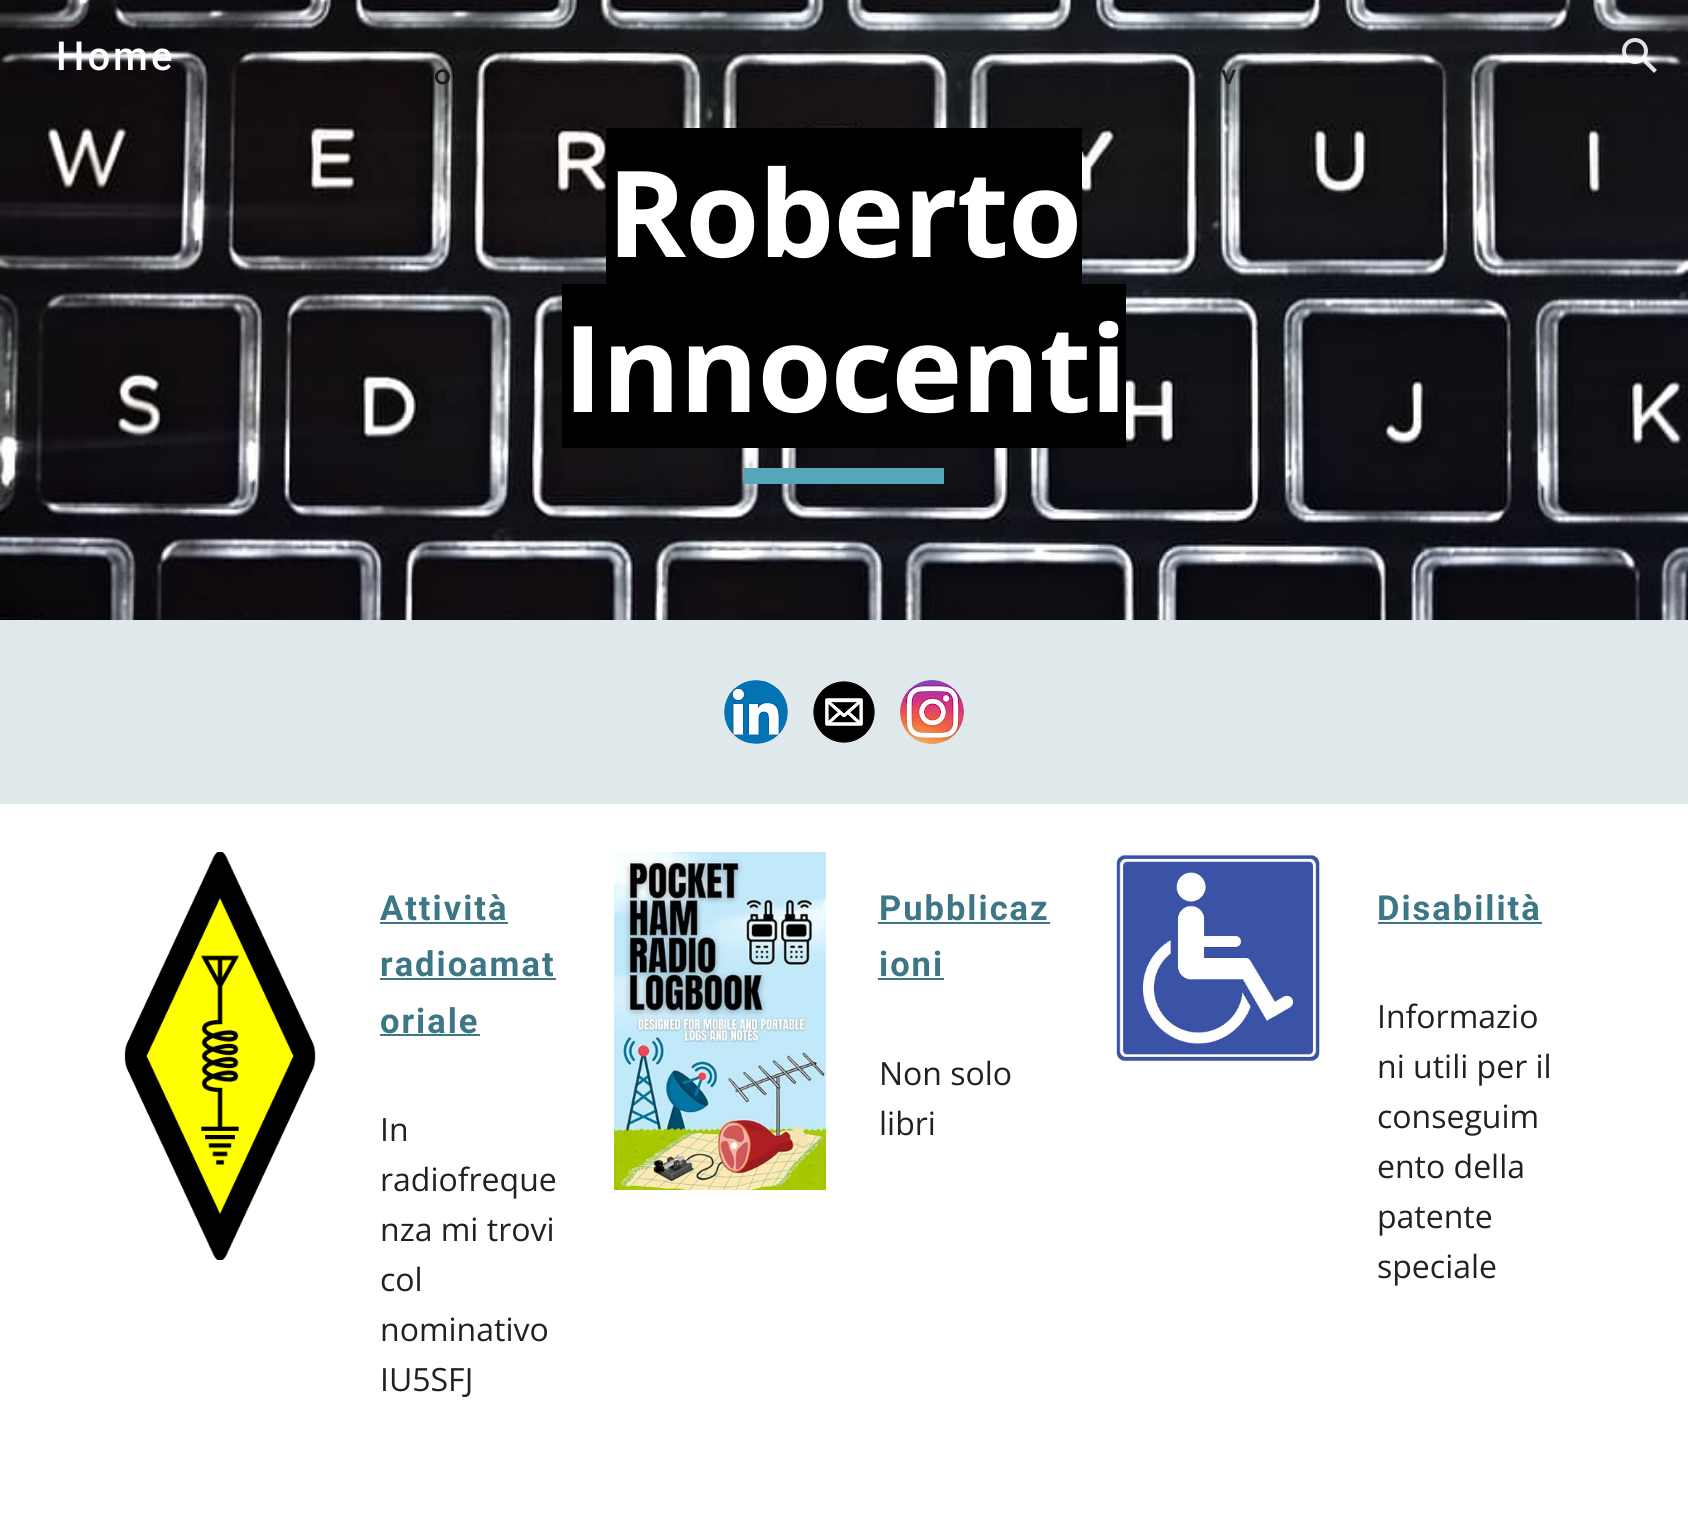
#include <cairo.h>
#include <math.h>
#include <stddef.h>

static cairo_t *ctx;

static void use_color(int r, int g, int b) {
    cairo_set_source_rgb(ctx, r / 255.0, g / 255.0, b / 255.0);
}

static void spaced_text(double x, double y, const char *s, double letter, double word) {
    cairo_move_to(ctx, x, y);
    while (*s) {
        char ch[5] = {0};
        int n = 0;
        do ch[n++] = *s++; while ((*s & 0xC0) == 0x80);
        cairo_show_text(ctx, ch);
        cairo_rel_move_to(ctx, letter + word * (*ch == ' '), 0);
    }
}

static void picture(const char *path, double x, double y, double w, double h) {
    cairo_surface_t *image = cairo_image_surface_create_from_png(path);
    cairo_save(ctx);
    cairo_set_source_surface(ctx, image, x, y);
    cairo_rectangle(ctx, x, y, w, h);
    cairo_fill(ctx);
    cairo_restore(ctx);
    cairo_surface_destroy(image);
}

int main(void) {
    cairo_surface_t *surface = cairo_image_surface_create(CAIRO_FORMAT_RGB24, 1688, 1534);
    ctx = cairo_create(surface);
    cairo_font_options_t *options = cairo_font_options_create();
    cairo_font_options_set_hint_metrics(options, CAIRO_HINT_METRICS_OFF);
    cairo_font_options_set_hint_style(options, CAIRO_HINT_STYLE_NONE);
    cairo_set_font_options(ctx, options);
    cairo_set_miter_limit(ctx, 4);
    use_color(255, 255, 255);
    cairo_paint(ctx);
    picture("img2.png", 0, 0, 1688, 620);
    cairo_select_font_face(ctx, "Roboto Medium", CAIRO_FONT_SLANT_NORMAL, CAIRO_FONT_WEIGHT_NORMAL);
    cairo_set_font_size(ctx, 40);
    use_color(255, 255, 255);
    spaced_text(56, 70, "Home", 3, 0);
    picture("img1.png", 1622, 38, 35, 35);
    use_color(0, 0, 0);
    cairo_rectangle(ctx, 606, 128, 476, 156);
    cairo_fill(ctx);
    cairo_select_font_face(ctx, "Open Sans", CAIRO_FONT_SLANT_NORMAL, CAIRO_FONT_WEIGHT_BOLD);
    cairo_set_font_size(ctx, 120);
    use_color(255, 255, 255);
    spaced_text(607, 257, "Roberto", -1, 0);
    use_color(0, 0, 0);
    cairo_rectangle(ctx, 562, 284, 564, 164);
    cairo_fill(ctx);
    use_color(255, 255, 255);
    spaced_text(563, 412, "Innocenti", -1, 0);
    use_color(83, 167, 184);
    cairo_rectangle(ctx, 744, 468, 200, 16);
    cairo_fill(ctx);
    use_color(223, 233, 235);
    cairo_rectangle(ctx, 0, 620, 1688, 184);
    cairo_fill(ctx);
    picture("img3.png", 724, 680, 64, 64);
    picture("img4.png", 813, 681, 62, 62);
    picture("img5.png", 900, 680, 64, 64);
    picture("img6.png", 124, 852, 192, 408);
    cairo_select_font_face(ctx, "Roboto", CAIRO_FONT_SLANT_NORMAL, CAIRO_FONT_WEIGHT_BOLD);
    cairo_set_font_size(ctx, 34.5);
    use_color(61, 118, 132);
    spaced_text(380, 920, "Attività", 2, 0);
    cairo_rectangle(ctx, 380, 922, 128, 2);
    cairo_fill(ctx);
    spaced_text(380, 976, "radioamat", 2, 0);
    cairo_rectangle(ctx, 380, 978, 176, 2);
    cairo_fill(ctx);
    spaced_text(380, 1033, "oriale", 2, 0);
    cairo_rectangle(ctx, 380, 1034, 100, 2);
    cairo_fill(ctx);
    cairo_select_font_face(ctx, "Open Sans", CAIRO_FONT_SLANT_NORMAL, CAIRO_FONT_WEIGHT_NORMAL);
    cairo_set_font_size(ctx, 32);
    use_color(33, 33, 33);
    cairo_move_to(ctx, 380, 1141);
    cairo_show_text(ctx, "In");
    cairo_move_to(ctx, 380, 1191);
    cairo_show_text(ctx, "radiofreque");
    cairo_move_to(ctx, 380, 1241);
    cairo_show_text(ctx, "nza mi trovi");
    cairo_move_to(ctx, 380, 1291);
    cairo_show_text(ctx, "col");
    cairo_move_to(ctx, 380, 1341);
    cairo_show_text(ctx, "nominativo");
    cairo_move_to(ctx, 380, 1391);
    cairo_show_text(ctx, "IU5SFJ");
    picture("img7.png", 614, 852, 212, 338);
    cairo_select_font_face(ctx, "Roboto", CAIRO_FONT_SLANT_NORMAL, CAIRO_FONT_WEIGHT_BOLD);
    cairo_set_font_size(ctx, 34.5);
    use_color(61, 118, 132);
    spaced_text(879, 920, "Pubblicaz", 2, 0);
    cairo_rectangle(ctx, 878, 922, 172, 2);
    cairo_fill(ctx);
    spaced_text(879, 976, "ioni", 2, 0);
    cairo_rectangle(ctx, 878, 978, 66, 2);
    cairo_fill(ctx);
    cairo_select_font_face(ctx, "Open Sans", CAIRO_FONT_SLANT_NORMAL, CAIRO_FONT_WEIGHT_NORMAL);
    cairo_set_font_size(ctx, 32);
    use_color(33, 33, 33);
    cairo_move_to(ctx, 879, 1085);
    cairo_show_text(ctx, "Non solo");
    cairo_move_to(ctx, 879, 1135);
    cairo_show_text(ctx, "libri");
    picture("img8.png", 1112, 852, 209, 210);
    cairo_select_font_face(ctx, "Roboto", CAIRO_FONT_SLANT_NORMAL, CAIRO_FONT_WEIGHT_BOLD);
    cairo_set_font_size(ctx, 34.5);
    use_color(61, 118, 132);
    spaced_text(1377, 920, "Disabilità", 2, 0);
    cairo_rectangle(ctx, 1378, 922, 164, 2);
    cairo_fill(ctx);
    cairo_select_font_face(ctx, "Open Sans", CAIRO_FONT_SLANT_NORMAL, CAIRO_FONT_WEIGHT_NORMAL);
    cairo_set_font_size(ctx, 32);
    use_color(33, 33, 33);
    cairo_move_to(ctx, 1377, 1028);
    cairo_show_text(ctx, "Informazio");
    cairo_move_to(ctx, 1377, 1078);
    cairo_show_text(ctx, "ni utili per il");
    cairo_move_to(ctx, 1377, 1128);
    cairo_show_text(ctx, "conseguim");
    cairo_move_to(ctx, 1377, 1178);
    cairo_show_text(ctx, "ento della");
    cairo_move_to(ctx, 1377, 1228);
    cairo_show_text(ctx, "patente");
    cairo_move_to(ctx, 1377, 1278);
    cairo_show_text(ctx, "speciale");
    cairo_select_font_face(ctx, "Google Sans Medium", CAIRO_FONT_SLANT_NORMAL, CAIRO_FONT_WEIGHT_NORMAL);
    cairo_set_font_size(ctx, 28);
    use_color(27, 24, 25);
    cairo_move_to(ctx, 434, 84);
    cairo_show_text(ctx, "o");
    use_color(33, 33, 33);
    cairo_move_to(ctx, 1221, 84);
    cairo_show_text(ctx, "v");
    cairo_surface_write_to_png(surface, "result.png");
    cairo_font_options_destroy(options);
    cairo_destroy(ctx);
    cairo_surface_destroy(surface);
    return 0;
}
